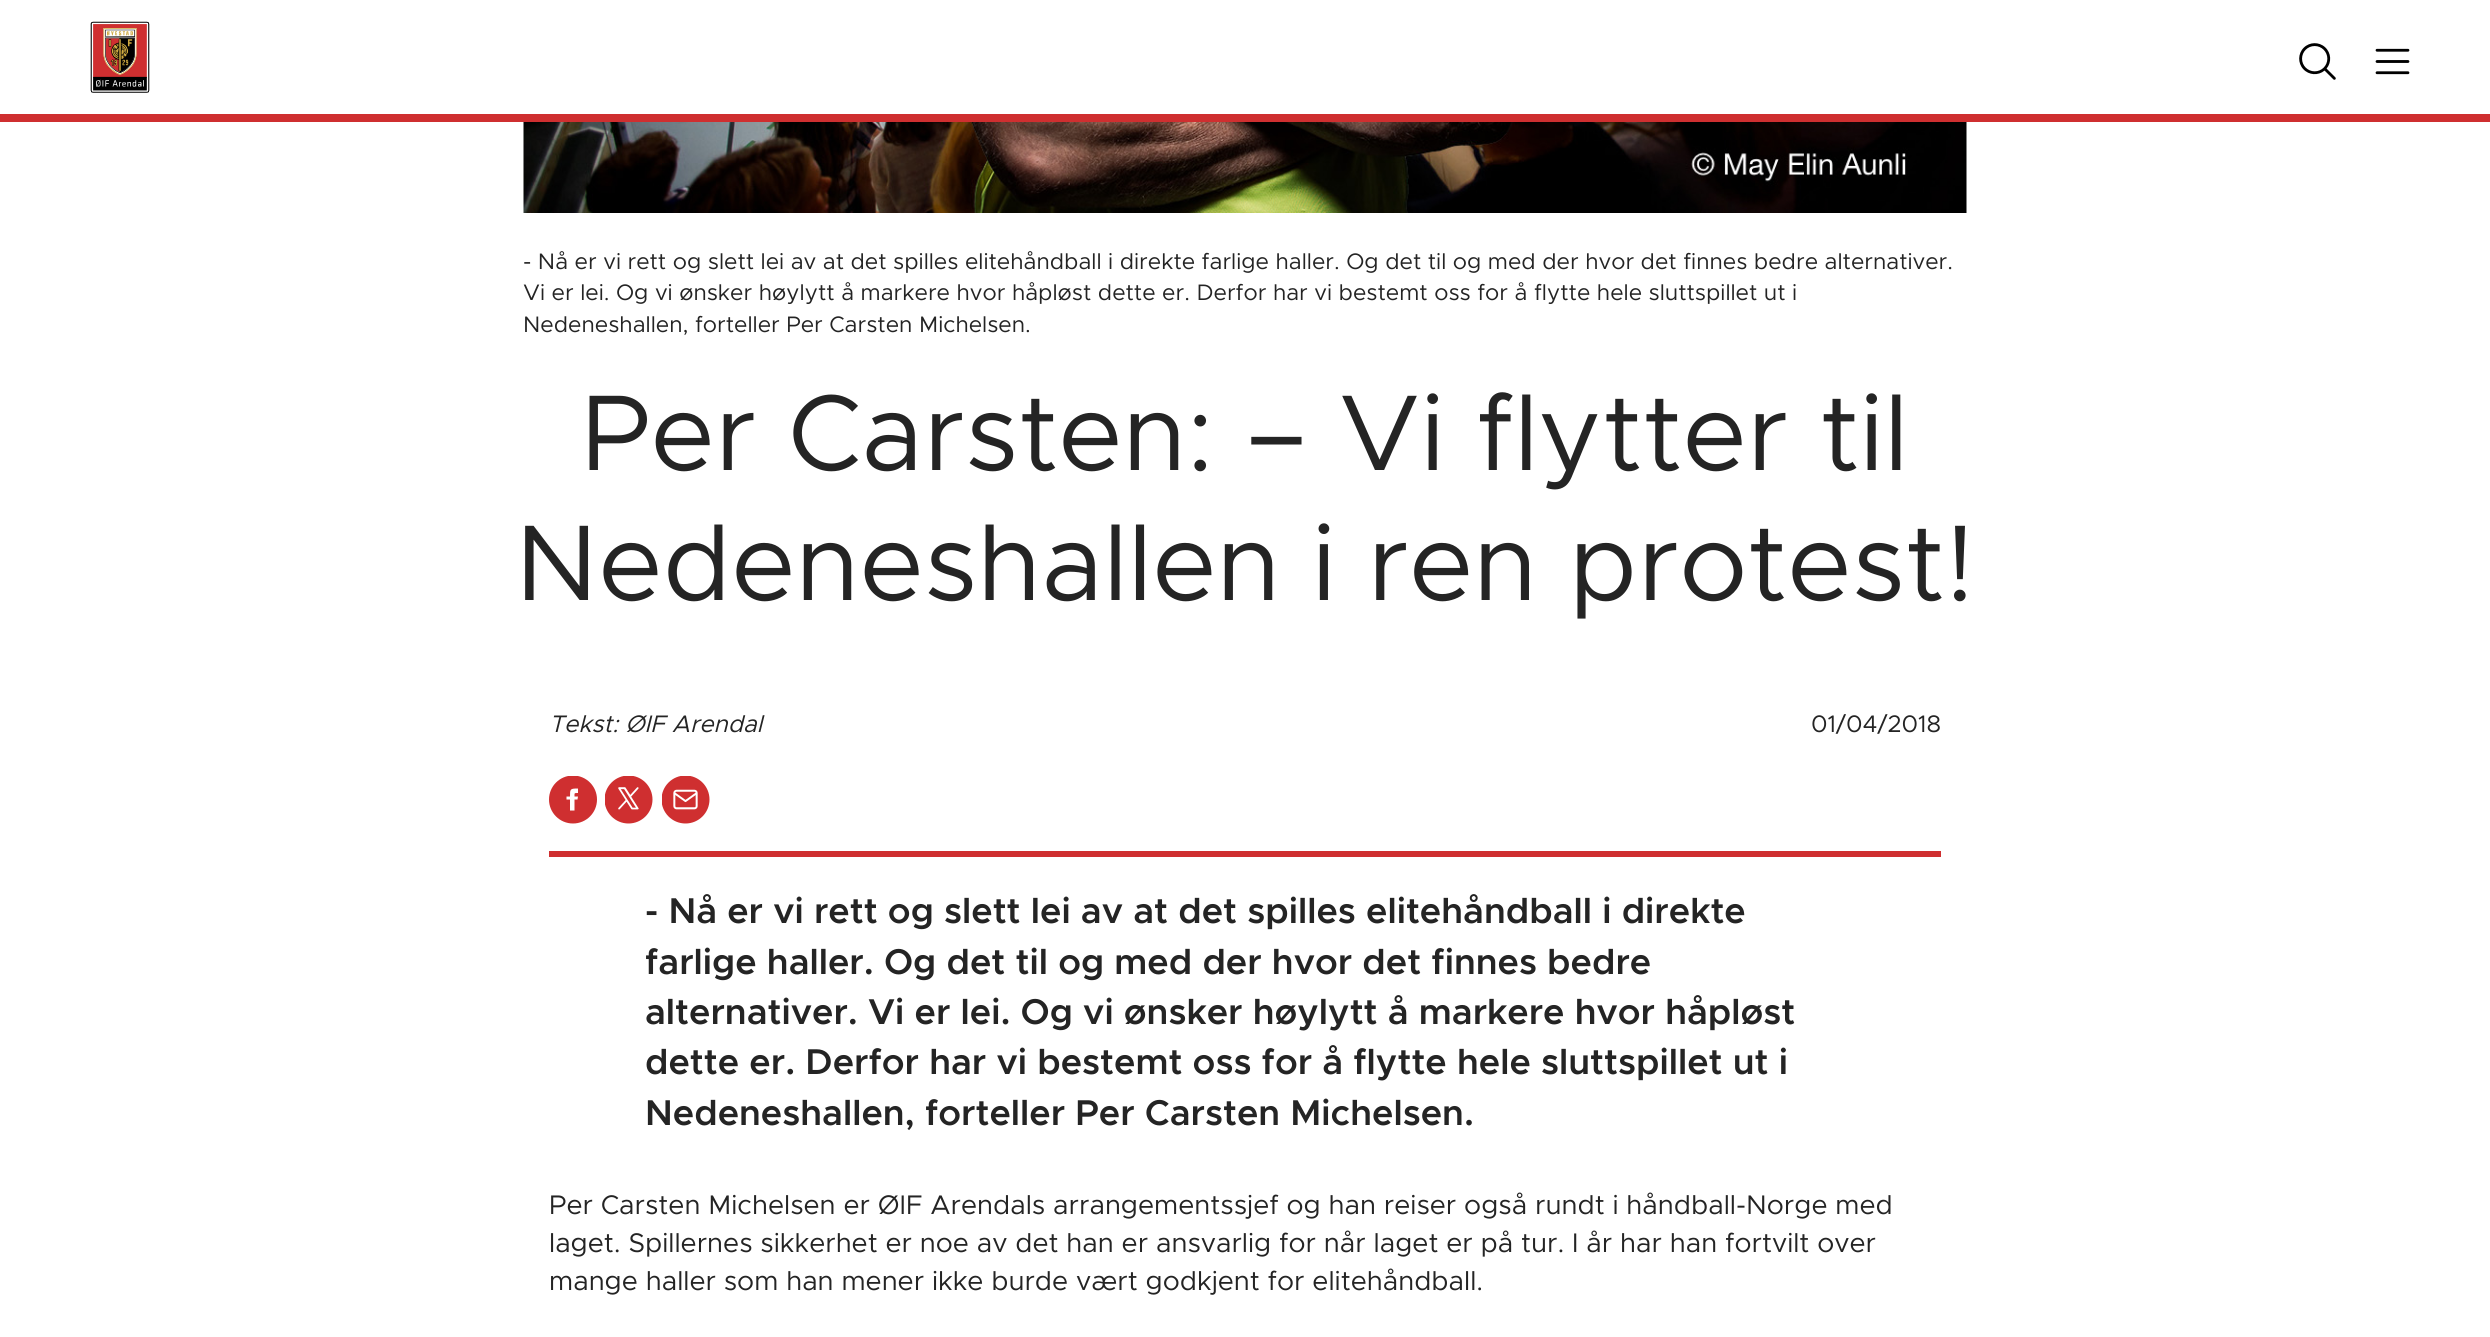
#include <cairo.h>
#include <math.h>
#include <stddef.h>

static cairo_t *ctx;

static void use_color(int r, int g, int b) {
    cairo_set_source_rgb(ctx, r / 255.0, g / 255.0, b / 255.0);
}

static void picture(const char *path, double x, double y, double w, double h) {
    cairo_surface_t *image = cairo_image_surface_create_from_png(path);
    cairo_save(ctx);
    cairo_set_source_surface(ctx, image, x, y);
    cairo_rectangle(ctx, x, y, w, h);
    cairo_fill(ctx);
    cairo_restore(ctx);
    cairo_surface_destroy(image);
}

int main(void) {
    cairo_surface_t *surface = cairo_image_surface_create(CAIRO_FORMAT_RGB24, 2490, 1337);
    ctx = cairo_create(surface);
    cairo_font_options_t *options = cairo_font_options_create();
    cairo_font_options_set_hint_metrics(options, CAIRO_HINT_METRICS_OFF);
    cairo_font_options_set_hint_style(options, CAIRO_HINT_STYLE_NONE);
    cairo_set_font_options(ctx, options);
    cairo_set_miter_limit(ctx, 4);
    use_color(255, 255, 255);
    cairo_paint(ctx);
    picture("img1.png", 90, 21, 60, 72);
    picture("img2.png", 2299, 43, 37, 37);
    picture("img3.png", 2375, 48, 35, 27);
    use_color(207, 47, 48);
    cairo_rectangle(ctx, 0, 114, 2490, 8);
    cairo_fill(ctx);
    picture("img4.png", 523, 122, 1444, 91);
    cairo_select_font_face(ctx, "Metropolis", CAIRO_FONT_SLANT_NORMAL, CAIRO_FONT_WEIGHT_NORMAL);
    cairo_set_font_size(ctx, 22.5);
    use_color(36, 36, 36);
    cairo_move_to(ctx, 523, 269);
    cairo_show_text(ctx, "- Nå er vi rett og slett lei av at det spilles elitehåndball i direkte farlige haller. Og det til og med der hvor det finnes bedre alternativer.");
    cairo_move_to(ctx, 523, 300);
    cairo_show_text(ctx, "Vi er lei. Og vi ønsker høylytt å markere hvor håpløst dette er. Derfor har vi bestemt oss for å flytte hele sluttspillet ut i");
    cairo_move_to(ctx, 523, 332);
    cairo_show_text(ctx, "Nedeneshallen, forteller Per Carsten Michelsen.");
    cairo_set_font_size(ctx, 108);
    cairo_move_to(ctx, 581, 470);
    cairo_show_text(ctx, "Per Carsten: – Vi flytter til");
    cairo_move_to(ctx, 515, 600);
    cairo_show_text(ctx, "Nedeneshallen i ren protest!");
    cairo_select_font_face(ctx, "Metropolis", CAIRO_FONT_SLANT_ITALIC, CAIRO_FONT_WEIGHT_NORMAL);
    cairo_set_font_size(ctx, 24);
    cairo_move_to(ctx, 549, 732);
    cairo_show_text(ctx, "Tekst: ØIF Arendal");
    cairo_select_font_face(ctx, "Metropolis", CAIRO_FONT_SLANT_NORMAL, CAIRO_FONT_WEIGHT_NORMAL);
    cairo_move_to(ctx, 1811, 732);
    cairo_show_text(ctx, "01/04/2018");
    cairo_save(ctx);
    cairo_rectangle(ctx, 549, 776, 48, 48);
    cairo_clip(ctx);
    use_color(207, 47, 48);
    cairo_arc(ctx, 573, 799.5, 24, 0, 2 * M_PI);
    cairo_fill(ctx);
    cairo_restore(ctx);
    picture("img5.png", 605, 776, 48, 48);
    picture("img6.png", 662, 776, 48, 48);
    use_color(255, 255, 255);
    cairo_new_path(ctx);
    cairo_move_to(ctx, 578, 793);
    cairo_curve_to(ctx, 574, 793, 574.5, 793, 574.5, 796.5);
    cairo_line_to(ctx, 578, 796.5);
    cairo_line_to(ctx, 577.5, 799.5);
    cairo_line_to(ctx, 574.5, 799.5);
    cairo_line_to(ctx, 574.5, 810.5);
    cairo_line_to(ctx, 570, 810.5);
    cairo_line_to(ctx, 570, 799.5);
    cairo_line_to(ctx, 566.5, 799.5);
    cairo_line_to(ctx, 566.5, 796.5);
    cairo_line_to(ctx, 570, 796.5);
    cairo_curve_to(ctx, 570, 789, 570, 788.5, 578, 788.5);
    cairo_close_path(ctx);
    cairo_fill(ctx);
    use_color(207, 47, 48);
    cairo_rectangle(ctx, 549, 851, 1392, 6);
    cairo_fill(ctx);
    cairo_select_font_face(ctx, "Metropolis SemiBold", CAIRO_FONT_SLANT_NORMAL, CAIRO_FONT_WEIGHT_NORMAL);
    cairo_set_font_size(ctx, 36);
    use_color(36, 36, 36);
    cairo_move_to(ctx, 645, 923);
    cairo_show_text(ctx, "- Nå er vi rett og slett lei av at det spilles elitehåndball i direkte");
    cairo_move_to(ctx, 645, 974);
    cairo_show_text(ctx, "farlige haller. Og det til og med der hvor det finnes bedre");
    cairo_move_to(ctx, 645, 1024);
    cairo_show_text(ctx, "alternativer. Vi er lei. Og vi ønsker høylytt å markere hvor håpløst");
    cairo_move_to(ctx, 645, 1074);
    cairo_show_text(ctx, "dette er. Derfor har vi bestemt oss for å flytte hele sluttspillet ut i");
    cairo_move_to(ctx, 645, 1125);
    cairo_show_text(ctx, "Nedeneshallen, forteller Per Carsten Michelsen.");
    cairo_select_font_face(ctx, "Metropolis", CAIRO_FONT_SLANT_NORMAL, CAIRO_FONT_WEIGHT_NORMAL);
    cairo_set_font_size(ctx, 27);
    cairo_move_to(ctx, 549, 1214);
    cairo_show_text(ctx, "Per Carsten Michelsen er ØIF Arendals arrangementssjef og han reiser også rundt i håndball-Norge med");
    cairo_move_to(ctx, 549, 1252);
    cairo_show_text(ctx, "laget. Spillernes sikkerhet er noe av det han er ansvarlig for når laget er på tur. I år har han fortvilt over");
    cairo_move_to(ctx, 549, 1290);
    cairo_show_text(ctx, "mange haller som han mener ikke burde vært godkjent for elitehåndball.");
    cairo_surface_write_to_png(surface, "result.png");
    cairo_font_options_destroy(options);
    cairo_destroy(ctx);
    cairo_surface_destroy(surface);
    return 0;
}
